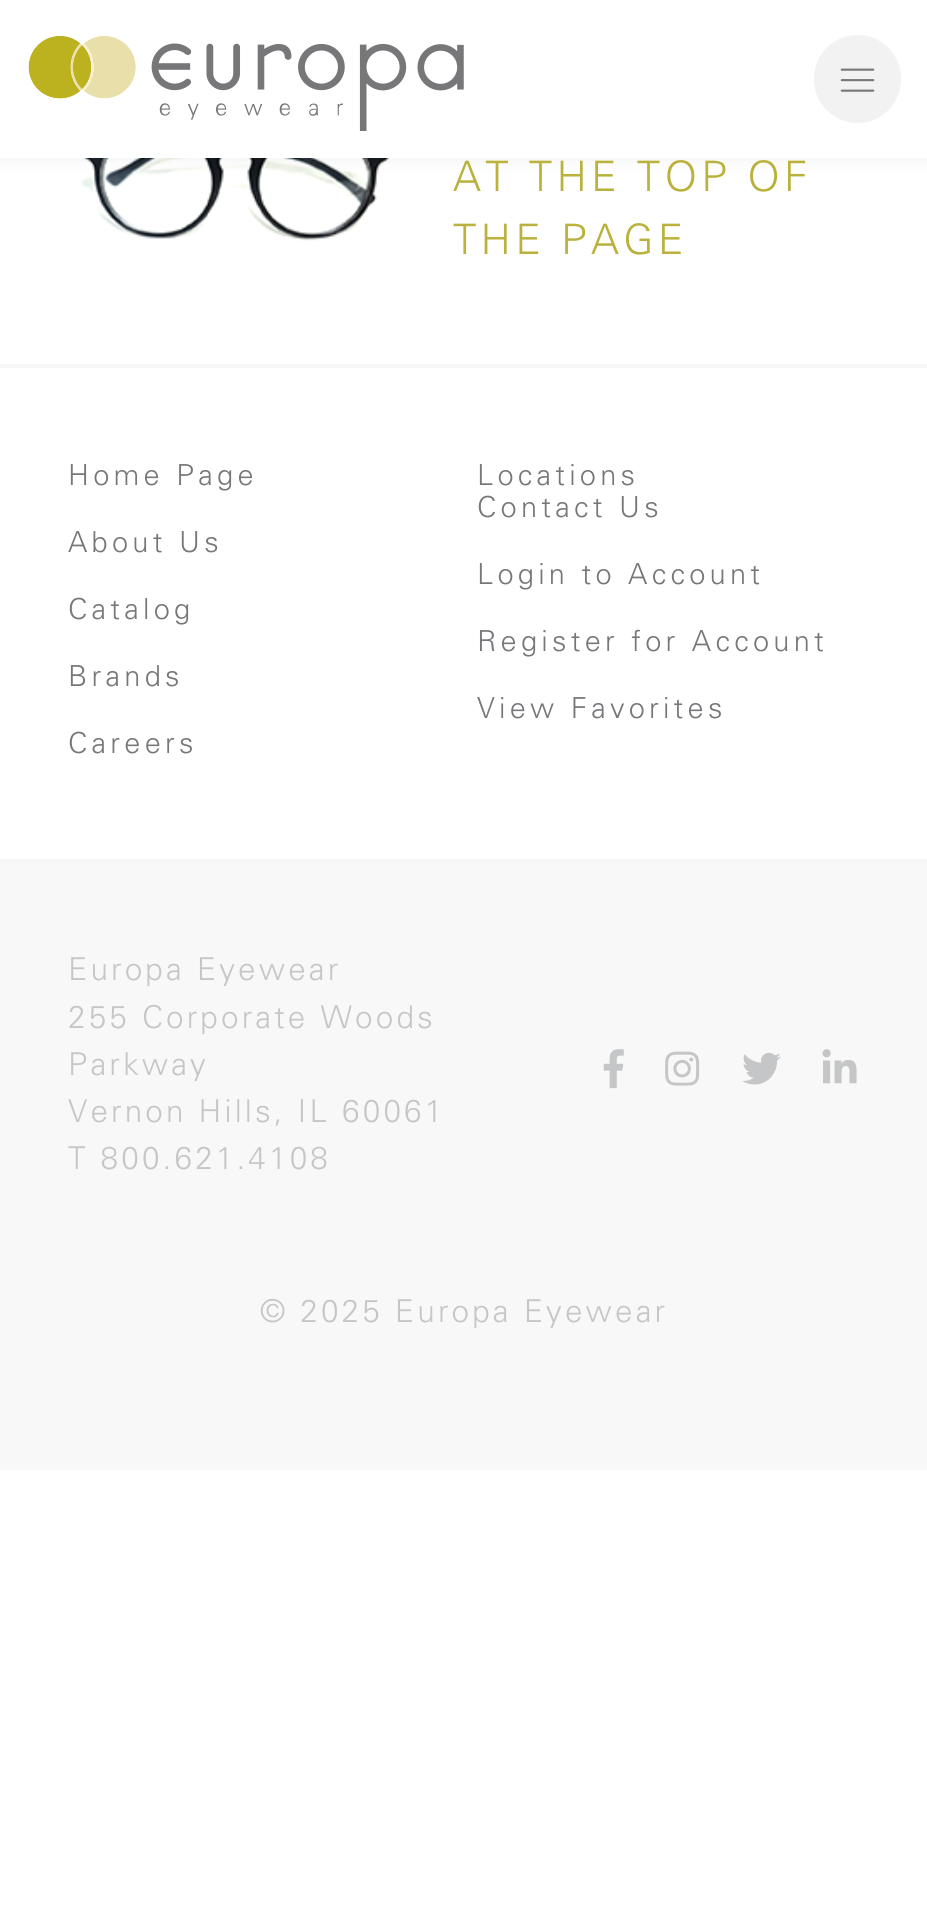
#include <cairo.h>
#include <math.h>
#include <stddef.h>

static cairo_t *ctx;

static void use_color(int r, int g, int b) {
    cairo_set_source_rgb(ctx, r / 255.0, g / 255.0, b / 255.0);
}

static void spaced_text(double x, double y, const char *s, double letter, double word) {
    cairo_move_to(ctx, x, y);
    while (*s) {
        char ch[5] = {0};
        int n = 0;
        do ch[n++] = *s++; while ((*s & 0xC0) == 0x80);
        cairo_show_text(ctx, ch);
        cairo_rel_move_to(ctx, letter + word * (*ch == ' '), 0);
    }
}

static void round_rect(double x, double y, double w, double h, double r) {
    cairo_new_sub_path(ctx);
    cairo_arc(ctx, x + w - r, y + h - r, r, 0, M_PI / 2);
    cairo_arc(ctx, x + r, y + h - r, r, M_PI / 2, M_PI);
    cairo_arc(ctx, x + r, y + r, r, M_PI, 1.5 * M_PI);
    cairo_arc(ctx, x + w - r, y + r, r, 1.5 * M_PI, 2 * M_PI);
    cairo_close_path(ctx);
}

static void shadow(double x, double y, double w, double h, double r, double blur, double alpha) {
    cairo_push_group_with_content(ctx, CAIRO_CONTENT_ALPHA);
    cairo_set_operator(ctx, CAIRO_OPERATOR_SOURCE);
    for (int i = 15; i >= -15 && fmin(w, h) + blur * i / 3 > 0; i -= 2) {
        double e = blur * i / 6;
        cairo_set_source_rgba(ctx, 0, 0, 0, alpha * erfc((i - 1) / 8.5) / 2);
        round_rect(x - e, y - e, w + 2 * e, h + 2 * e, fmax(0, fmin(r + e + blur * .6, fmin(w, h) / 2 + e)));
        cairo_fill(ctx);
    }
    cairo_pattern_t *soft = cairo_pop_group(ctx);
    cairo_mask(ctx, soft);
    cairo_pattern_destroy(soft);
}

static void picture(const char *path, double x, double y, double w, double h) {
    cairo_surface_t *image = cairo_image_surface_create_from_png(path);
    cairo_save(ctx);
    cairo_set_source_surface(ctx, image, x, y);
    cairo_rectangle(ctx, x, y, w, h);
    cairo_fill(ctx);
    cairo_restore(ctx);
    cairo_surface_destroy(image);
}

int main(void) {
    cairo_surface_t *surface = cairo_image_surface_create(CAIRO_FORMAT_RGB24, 927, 1928);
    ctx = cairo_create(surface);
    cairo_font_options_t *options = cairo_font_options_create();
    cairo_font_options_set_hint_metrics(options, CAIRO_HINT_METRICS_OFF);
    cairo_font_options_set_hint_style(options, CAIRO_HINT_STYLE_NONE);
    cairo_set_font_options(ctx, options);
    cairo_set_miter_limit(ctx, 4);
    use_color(255, 255, 255);
    cairo_paint(ctx);
    picture("img3.png", 80, 158, 311, 83);
    use_color(0, 0, 0);
    shadow(0, 4, 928, 157, 0, 7, 0.05);
    use_color(255, 255, 255);
    cairo_rectangle(ctx, 0, 0, 927, 158);
    cairo_fill(ctx);
    picture("img1.png", 28, 35, 436, 96);
    use_color(242, 242, 242);
    round_rect(814, 35, 87, 88, 43.5);
    cairo_fill(ctx);
    picture("img2.png", 840, 68, 35, 24);
    cairo_select_font_face(ctx, "Univers Light", CAIRO_FONT_SLANT_NORMAL, CAIRO_FONT_WEIGHT_NORMAL);
    cairo_set_font_size(ctx, 42);
    use_color(186, 178, 61);
    spaced_text(453, 191, "AT THE TOP OF", 4.25, 0);
    spaced_text(453, 254, "THE PAGE", 4.25, 0);
    use_color(246, 246, 246);
    cairo_rectangle(ctx, 0, 364, 927, 4);
    cairo_fill(ctx);
    cairo_rectangle(ctx, 0, 859, 927, 4);
    cairo_fill(ctx);
    cairo_set_font_size(ctx, 29);
    use_color(118, 119, 122);
    spaced_text(68, 485, "Home Page", 4.25, 0);
    spaced_text(477, 485, "Locations", 4.25, 0);
    spaced_text(68, 552, "About Us", 4.25, 0);
    spaced_text(68, 619, "Catalog", 4.25, 0);
    spaced_text(68, 686, "Brands", 4.25, 0);
    spaced_text(68, 753, "Careers", 4.25, 0);
    spaced_text(477, 517, "Contact Us", 4.25, 0);
    spaced_text(477, 584, "Login to Account", 4.25, 0);
    spaced_text(477, 651, "Register for Account", 4.25, 0);
    spaced_text(477, 718, "View Favorites", 4.25, 0);
    use_color(248, 248, 248);
    cairo_rectangle(ctx, 0, 863, 927, 607);
    cairo_fill(ctx);
    cairo_set_font_size(ctx, 31.5);
    use_color(197, 198, 199);
    spaced_text(68, 980, "Europa Eyewear", 3.15, 0);
    spaced_text(68, 1028, "255 Corporate Woods", 3.15, 0);
    spaced_text(68, 1075, "Parkway", 3.15, 0);
    spaced_text(68, 1122, "Vernon Hills, IL 60061", 3.15, 0);
    spaced_text(68, 1169, "T 800.621.4108", 3.15, 0);
    picture("img4.png", 603, 1049, 21, 40);
    picture("img5.png", 665, 1051, 35, 35);
    picture("img6.png", 742, 1052, 39, 33);
    picture("img7.png", 822, 1049, 35, 35);
    spaced_text(260, 1322, "© 2025 Europa Eyewear", 3.15, 0);
    cairo_surface_write_to_png(surface, "result.png");
    cairo_font_options_destroy(options);
    cairo_destroy(ctx);
    cairo_surface_destroy(surface);
    return 0;
}
